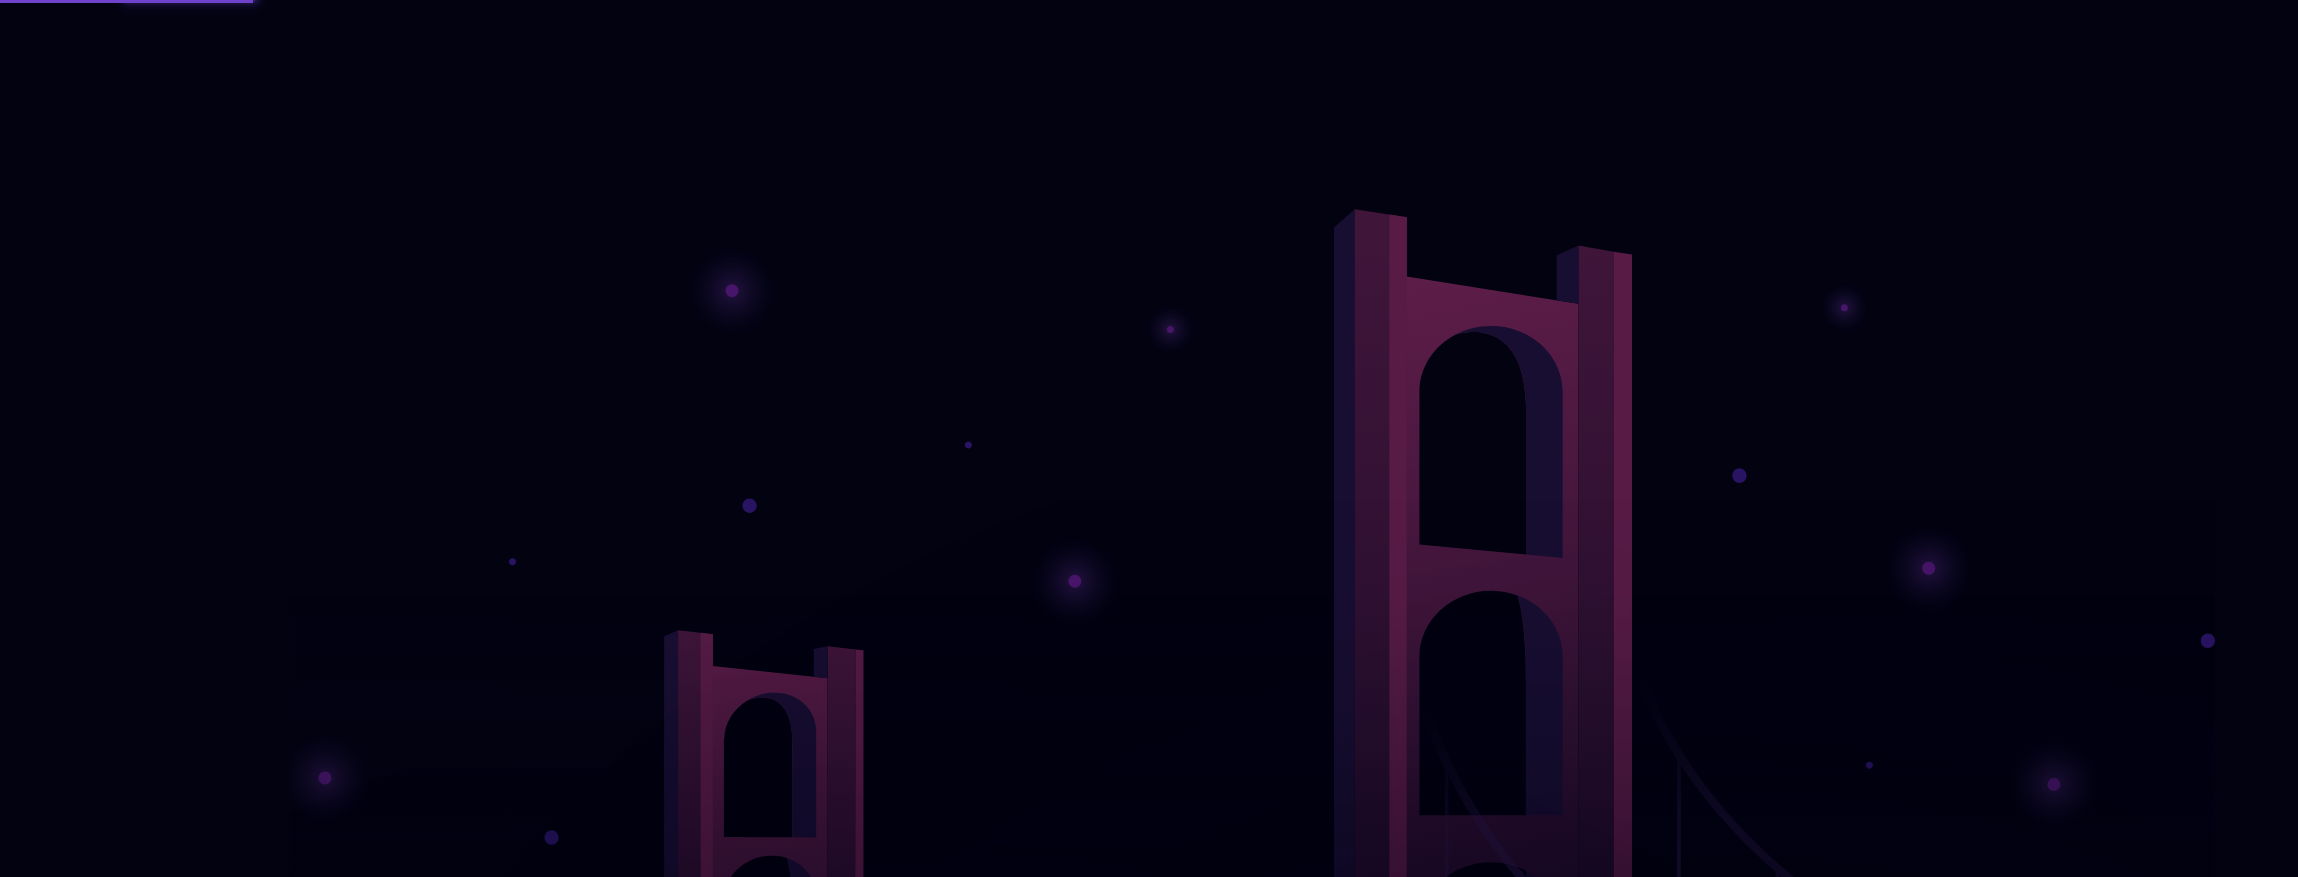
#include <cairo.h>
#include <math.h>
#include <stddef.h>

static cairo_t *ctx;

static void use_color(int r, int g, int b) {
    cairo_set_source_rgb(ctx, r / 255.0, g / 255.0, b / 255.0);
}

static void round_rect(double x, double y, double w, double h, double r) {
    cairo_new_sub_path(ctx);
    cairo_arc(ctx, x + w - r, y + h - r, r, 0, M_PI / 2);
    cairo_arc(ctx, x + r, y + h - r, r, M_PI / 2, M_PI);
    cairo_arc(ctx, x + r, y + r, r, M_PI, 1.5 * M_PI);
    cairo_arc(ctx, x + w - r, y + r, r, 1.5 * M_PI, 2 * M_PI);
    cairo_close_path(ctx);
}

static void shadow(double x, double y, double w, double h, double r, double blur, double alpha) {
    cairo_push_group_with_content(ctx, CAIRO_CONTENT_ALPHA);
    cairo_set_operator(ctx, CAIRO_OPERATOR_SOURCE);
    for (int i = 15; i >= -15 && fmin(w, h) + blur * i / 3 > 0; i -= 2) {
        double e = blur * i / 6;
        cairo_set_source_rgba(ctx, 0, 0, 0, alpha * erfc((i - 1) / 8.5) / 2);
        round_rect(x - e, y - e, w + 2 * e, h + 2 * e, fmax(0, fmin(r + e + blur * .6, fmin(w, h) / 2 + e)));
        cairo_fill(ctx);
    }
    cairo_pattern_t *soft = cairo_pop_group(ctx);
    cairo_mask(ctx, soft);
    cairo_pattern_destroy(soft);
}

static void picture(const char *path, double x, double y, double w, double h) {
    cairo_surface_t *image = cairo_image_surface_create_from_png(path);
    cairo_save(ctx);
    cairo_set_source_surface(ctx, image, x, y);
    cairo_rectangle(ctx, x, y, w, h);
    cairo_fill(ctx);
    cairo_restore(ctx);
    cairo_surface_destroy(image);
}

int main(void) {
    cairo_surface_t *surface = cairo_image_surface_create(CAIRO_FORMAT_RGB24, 2298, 877);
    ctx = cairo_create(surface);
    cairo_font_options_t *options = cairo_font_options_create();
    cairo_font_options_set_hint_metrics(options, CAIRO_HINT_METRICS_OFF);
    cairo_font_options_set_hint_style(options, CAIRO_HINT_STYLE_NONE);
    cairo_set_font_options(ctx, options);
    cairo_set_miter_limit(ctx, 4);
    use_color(2, 2, 17);
    cairo_paint(ctx);
    use_color(110, 66, 202);
    cairo_rectangle(ctx, 0, 0, 253, 3);
    cairo_fill(ctx);
    use_color(110, 66, 202);
    shadow(128, -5, 125, 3, 0, 3, 1);
    shadow(128, -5, 125, 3, 0, 6.5, 1);
    picture("img1.png", 289, 209, 1926, 668);
    cairo_surface_write_to_png(surface, "result.png");
    cairo_font_options_destroy(options);
    cairo_destroy(ctx);
    cairo_surface_destroy(surface);
    return 0;
}
